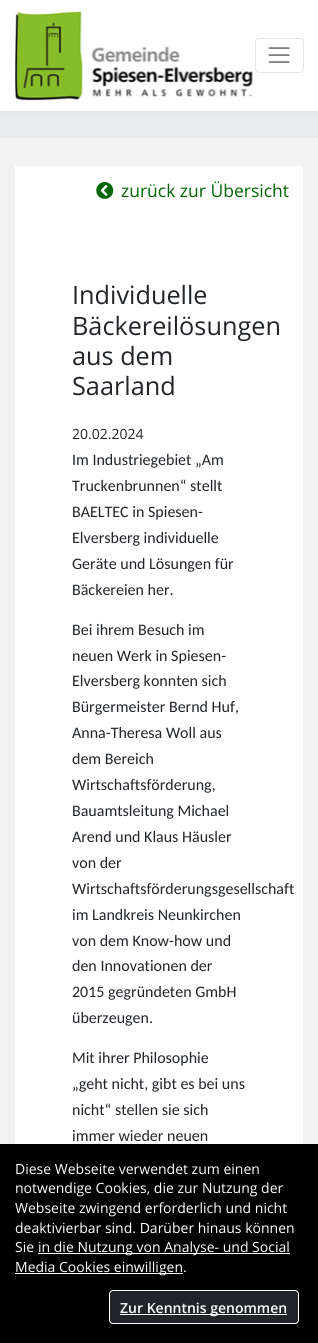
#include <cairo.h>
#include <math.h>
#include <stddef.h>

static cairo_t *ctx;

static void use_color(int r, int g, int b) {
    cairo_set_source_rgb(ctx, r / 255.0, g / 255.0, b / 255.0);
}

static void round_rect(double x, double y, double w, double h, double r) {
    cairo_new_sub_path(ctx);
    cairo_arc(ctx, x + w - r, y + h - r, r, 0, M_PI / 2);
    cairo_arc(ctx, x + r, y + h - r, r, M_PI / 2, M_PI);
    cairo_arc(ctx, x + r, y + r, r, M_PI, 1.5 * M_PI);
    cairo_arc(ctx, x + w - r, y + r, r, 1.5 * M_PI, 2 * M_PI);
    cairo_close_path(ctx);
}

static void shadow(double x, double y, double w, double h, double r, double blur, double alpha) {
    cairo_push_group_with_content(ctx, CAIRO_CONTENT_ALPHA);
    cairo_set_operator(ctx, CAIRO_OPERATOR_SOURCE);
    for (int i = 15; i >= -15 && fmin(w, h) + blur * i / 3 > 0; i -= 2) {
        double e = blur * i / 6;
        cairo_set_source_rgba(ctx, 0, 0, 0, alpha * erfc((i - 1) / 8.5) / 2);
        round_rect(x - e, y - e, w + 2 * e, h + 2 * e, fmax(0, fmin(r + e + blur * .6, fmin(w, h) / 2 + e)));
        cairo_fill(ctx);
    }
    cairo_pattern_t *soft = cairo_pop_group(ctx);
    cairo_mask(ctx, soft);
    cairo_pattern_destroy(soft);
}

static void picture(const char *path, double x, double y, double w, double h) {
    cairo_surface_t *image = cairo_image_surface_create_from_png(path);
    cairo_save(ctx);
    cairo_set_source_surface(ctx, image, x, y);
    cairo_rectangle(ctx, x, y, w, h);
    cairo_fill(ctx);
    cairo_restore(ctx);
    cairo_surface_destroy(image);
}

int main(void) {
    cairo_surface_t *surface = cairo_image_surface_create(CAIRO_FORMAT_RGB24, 318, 1343);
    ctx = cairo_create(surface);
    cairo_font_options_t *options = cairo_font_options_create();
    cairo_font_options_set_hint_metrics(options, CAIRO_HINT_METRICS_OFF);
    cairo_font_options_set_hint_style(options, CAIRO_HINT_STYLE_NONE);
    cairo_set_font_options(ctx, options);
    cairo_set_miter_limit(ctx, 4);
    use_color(243, 242, 242);
    cairo_paint(ctx);
    use_color(233, 236, 239);
    cairo_rectangle(ctx, 0, 111, 318, 27);
    cairo_fill(ctx);
    use_color(0, 0, 0);
    shadow(0, 0, 318, 111, 0, 2.5, 0.06);
    use_color(255, 255, 255);
    cairo_rectangle(ctx, 0, 0, 318, 111);
    cairo_fill(ctx);
    picture("img1.png", 15, 11, 238, 90);
    round_rect(255.5, 38.5, 48, 34, 3.5);
    use_color(230, 230, 230);
    cairo_set_line_width(ctx, 1);
    cairo_stroke(ctx);
    picture("img2.png", 268, 47, 22, 16);
    use_color(255, 255, 255);
    cairo_rectangle(ctx, 15, 166, 288, 978);
    cairo_fill(ctx);
    picture("img3.png", 96, 182, 18, 17);
    cairo_select_font_face(ctx, "Open Sans", CAIRO_FONT_SLANT_NORMAL, CAIRO_FONT_WEIGHT_NORMAL);
    cairo_set_font_size(ctx, 17.5);
    use_color(0, 102, 0);
    cairo_move_to(ctx, 121, 197);
    cairo_show_text(ctx, "zurück zur Übersicht");
    cairo_set_font_size(ctx, 25.25);
    use_color(33, 37, 41);
    cairo_move_to(ctx, 72, 304);
    cairo_show_text(ctx, "Individuelle");
    cairo_move_to(ctx, 72, 335);
    cairo_show_text(ctx, "Bäckereilösungen");
    cairo_move_to(ctx, 72, 365);
    cairo_show_text(ctx, "aus dem");
    cairo_move_to(ctx, 72, 395);
    cairo_show_text(ctx, "Saarland");
    cairo_set_font_size(ctx, 14);
    cairo_move_to(ctx, 72, 439);
    cairo_show_text(ctx, "20.02.2024");
    cairo_select_font_face(ctx, "Carlito", CAIRO_FONT_SLANT_NORMAL, CAIRO_FONT_WEIGHT_NORMAL);
    cairo_set_font_size(ctx, 16);
    cairo_move_to(ctx, 72, 465);
    cairo_show_text(ctx, "Im Industriegebiet „Am");
    cairo_move_to(ctx, 72, 491);
    cairo_show_text(ctx, "Truckenbrunnen“ stellt");
    cairo_move_to(ctx, 72, 517);
    cairo_show_text(ctx, "BAELTEC in Spiesen-");
    cairo_move_to(ctx, 72, 543);
    cairo_show_text(ctx, "Elversberg individuelle");
    cairo_move_to(ctx, 72, 569);
    cairo_show_text(ctx, "Geräte und Lösungen für");
    cairo_move_to(ctx, 72, 595);
    cairo_show_text(ctx, "Bäckereien her.");
    cairo_move_to(ctx, 72, 635);
    cairo_show_text(ctx, "Bei ihrem Besuch im");
    cairo_move_to(ctx, 72, 661);
    cairo_show_text(ctx, "neuen Werk in Spiesen-");
    cairo_move_to(ctx, 72, 686);
    cairo_show_text(ctx, "Elversberg konnten sich");
    cairo_move_to(ctx, 72, 712);
    cairo_show_text(ctx, "Bürgermeister Bernd Huf,");
    cairo_move_to(ctx, 72, 738);
    cairo_show_text(ctx, "Anna-Theresa Woll aus");
    cairo_move_to(ctx, 72, 764);
    cairo_show_text(ctx, "dem Bereich");
    cairo_move_to(ctx, 72, 790);
    cairo_show_text(ctx, "Wirtschaftsförderung,");
    cairo_move_to(ctx, 72, 816);
    cairo_show_text(ctx, "Bauamtsleitung Michael");
    cairo_move_to(ctx, 72, 842);
    cairo_show_text(ctx, "Arend und Klaus Häusler");
    cairo_move_to(ctx, 72, 868);
    cairo_show_text(ctx, "von der");
    cairo_move_to(ctx, 72, 894);
    cairo_show_text(ctx, "Wirtschaftsförderungsgesellschaft");
    cairo_move_to(ctx, 72, 920);
    cairo_show_text(ctx, "im Landkreis Neunkirchen");
    cairo_move_to(ctx, 72, 946);
    cairo_show_text(ctx, "von dem Know-how und");
    cairo_move_to(ctx, 72, 971);
    cairo_show_text(ctx, "den Innovationen der");
    cairo_move_to(ctx, 72, 997);
    cairo_show_text(ctx, "2015 gegründeten GmbH");
    cairo_move_to(ctx, 72, 1023);
    cairo_show_text(ctx, "überzeugen.");
    cairo_move_to(ctx, 72, 1063);
    cairo_show_text(ctx, "Mit ihrer Philosophie");
    cairo_move_to(ctx, 72, 1089);
    cairo_show_text(ctx, "„geht nicht, gibt es bei uns");
    cairo_move_to(ctx, 72, 1115);
    cairo_show_text(ctx, "nicht“ stellen sie sich");
    cairo_move_to(ctx, 72, 1141);
    cairo_show_text(ctx, "immer wieder neuen");
    use_color(0, 0, 0);
    cairo_rectangle(ctx, 0, 1144, 318, 199);
    cairo_fill(ctx);
    cairo_select_font_face(ctx, "Open Sans", CAIRO_FONT_SLANT_NORMAL, CAIRO_FONT_WEIGHT_NORMAL);
    cairo_set_font_size(ctx, 14);
    use_color(255, 255, 255);
    cairo_move_to(ctx, 15, 1174);
    cairo_show_text(ctx, "Diese Webseite verwendet zum einen");
    cairo_move_to(ctx, 15, 1193);
    cairo_show_text(ctx, "notwendige Cookies, die zur Nutzung der");
    cairo_move_to(ctx, 15, 1213);
    cairo_show_text(ctx, "Webseite zwingend erforderlich und nicht");
    cairo_move_to(ctx, 15, 1233);
    cairo_show_text(ctx, "deaktivierbar sind. Darüber hinaus können");
    cairo_move_to(ctx, 15, 1252);
    cairo_show_text(ctx, "Sie");
    cairo_rectangle(ctx, 38, 1253, 252, 1);
    cairo_fill(ctx);
    cairo_move_to(ctx, 38, 1252);
    cairo_show_text(ctx, "in die Nutzung von Analyse- und Social");
    cairo_rectangle(ctx, 15, 1273, 168, 1);
    cairo_fill(ctx);
    cairo_move_to(ctx, 15, 1272);
    cairo_show_text(ctx, "Media Cookies einwilligen.");
    use_color(33, 37, 41);
    round_rect(109.5, 1290.5, 189, 33, 3.5);
    cairo_fill_preserve(ctx);
    use_color(255, 255, 255);
    cairo_stroke(ctx);
    cairo_rectangle(ctx, 120, 1314, 167, 1);
    cairo_fill(ctx);
    cairo_select_font_face(ctx, "Open Sans SemiBold", CAIRO_FONT_SLANT_NORMAL, CAIRO_FONT_WEIGHT_NORMAL);
    cairo_move_to(ctx, 120, 1313);
    cairo_show_text(ctx, "Zur Kenntnis genommen");
    cairo_surface_write_to_png(surface, "result.png");
    cairo_font_options_destroy(options);
    cairo_destroy(ctx);
    cairo_surface_destroy(surface);
    return 0;
}
